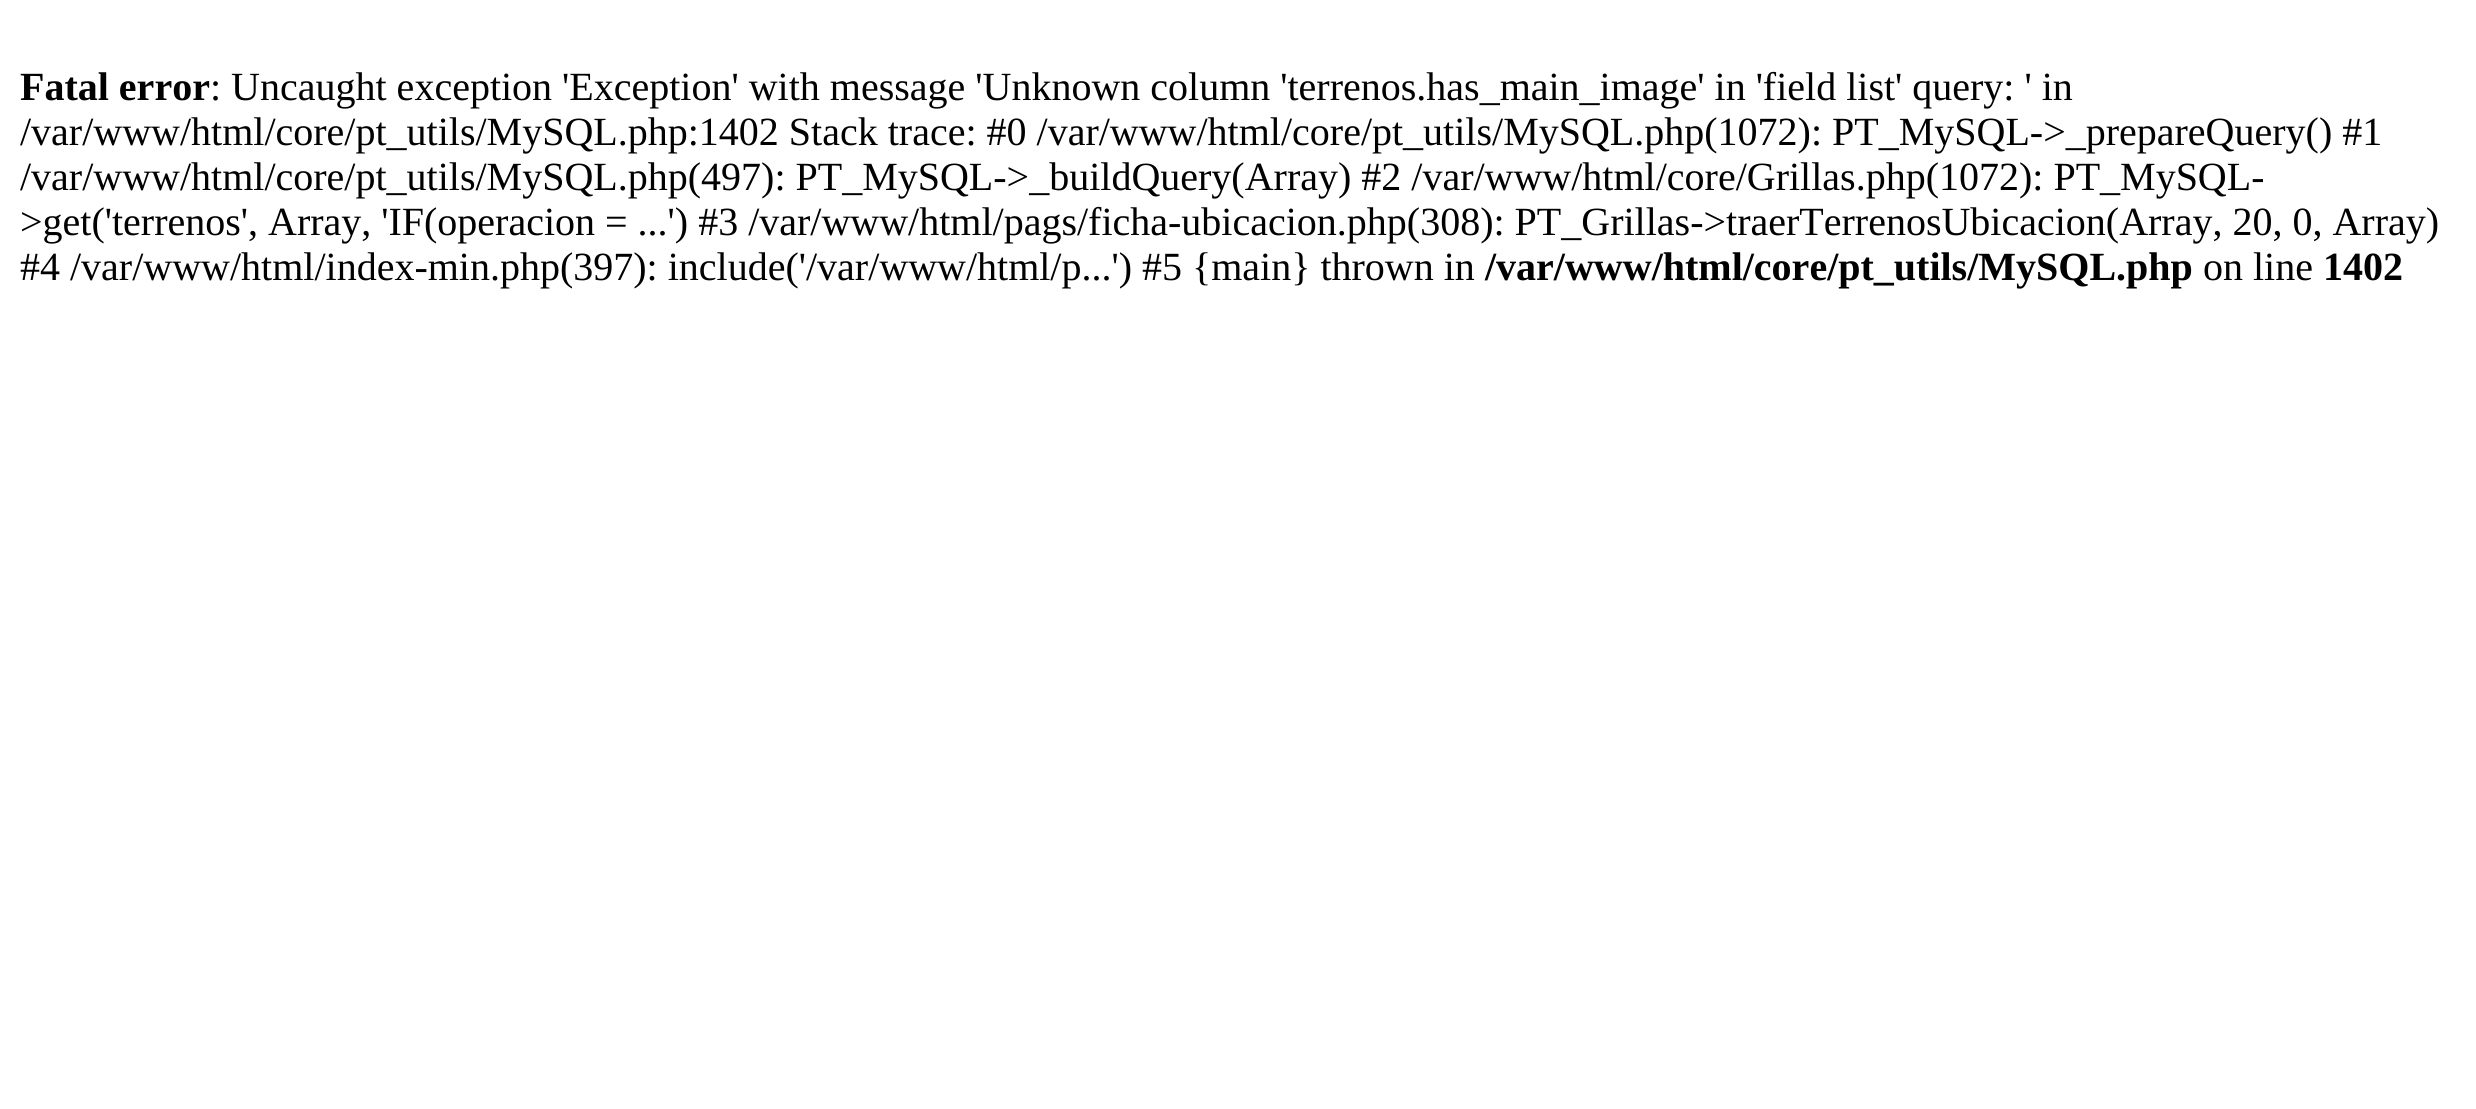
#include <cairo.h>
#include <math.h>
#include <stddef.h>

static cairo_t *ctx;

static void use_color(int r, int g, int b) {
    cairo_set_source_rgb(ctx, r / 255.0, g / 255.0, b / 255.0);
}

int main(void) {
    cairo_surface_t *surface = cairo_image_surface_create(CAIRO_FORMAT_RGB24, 2476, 1109);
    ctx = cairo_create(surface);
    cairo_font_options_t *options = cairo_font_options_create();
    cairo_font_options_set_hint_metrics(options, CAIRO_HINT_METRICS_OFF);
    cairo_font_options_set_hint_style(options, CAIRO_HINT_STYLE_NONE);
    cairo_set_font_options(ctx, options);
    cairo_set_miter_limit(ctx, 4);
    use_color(255, 255, 255);
    cairo_paint(ctx);
    cairo_select_font_face(ctx, "Liberation Serif", CAIRO_FONT_SLANT_NORMAL, CAIRO_FONT_WEIGHT_BOLD);
    cairo_set_font_size(ctx, 40);
    use_color(0, 0, 0);
    cairo_move_to(ctx, 20, 100);
    cairo_show_text(ctx, "Fatal error");
    cairo_select_font_face(ctx, "Liberation Serif", CAIRO_FONT_SLANT_NORMAL, CAIRO_FONT_WEIGHT_NORMAL);
    cairo_move_to(ctx, 210, 100);
    cairo_show_text(ctx, ": Uncaught exception 'Exception' with message 'Unknown column 'terrenos.has_main_image' in 'field list' query: ' in");
    cairo_move_to(ctx, 20, 145);
    cairo_show_text(ctx, "/var/www/html/core/pt_utils/MySQL.php:1402 Stack trace: #0 /var/www/html/core/pt_utils/MySQL.php(1072): PT_MySQL->_prepareQuery() #1");
    cairo_move_to(ctx, 20, 190);
    cairo_show_text(ctx, "/var/www/html/core/pt_utils/MySQL.php(497): PT_MySQL->_buildQuery(Array) #2 /var/www/html/core/Grillas.php(1072): PT_MySQL-");
    cairo_move_to(ctx, 20, 235);
    cairo_show_text(ctx, ">get('terrenos', Array, 'IF(operacion = ...') #3 /var/www/html/pags/ficha-ubicacion.php(308): PT_Grillas->traerTerrenosUbicacion(Array, 20, 0, Array)");
    cairo_move_to(ctx, 20, 280);
    cairo_show_text(ctx, "#4 /var/www/html/index-min.php(397): include('/var/www/html/p...') #5 {main} thrown in");
    cairo_select_font_face(ctx, "Liberation Serif", CAIRO_FONT_SLANT_NORMAL, CAIRO_FONT_WEIGHT_BOLD);
    cairo_move_to(ctx, 1485, 280);
    cairo_show_text(ctx, "/var/www/html/core/pt_utils/MySQL.php");
    cairo_select_font_face(ctx, "Liberation Serif", CAIRO_FONT_SLANT_NORMAL, CAIRO_FONT_WEIGHT_NORMAL);
    cairo_move_to(ctx, 2203, 280);
    cairo_show_text(ctx, "on line");
    cairo_select_font_face(ctx, "Liberation Serif", CAIRO_FONT_SLANT_NORMAL, CAIRO_FONT_WEIGHT_BOLD);
    cairo_move_to(ctx, 2323, 280);
    cairo_show_text(ctx, "1402");
    cairo_surface_write_to_png(surface, "result.png");
    cairo_font_options_destroy(options);
    cairo_destroy(ctx);
    cairo_surface_destroy(surface);
    return 0;
}
